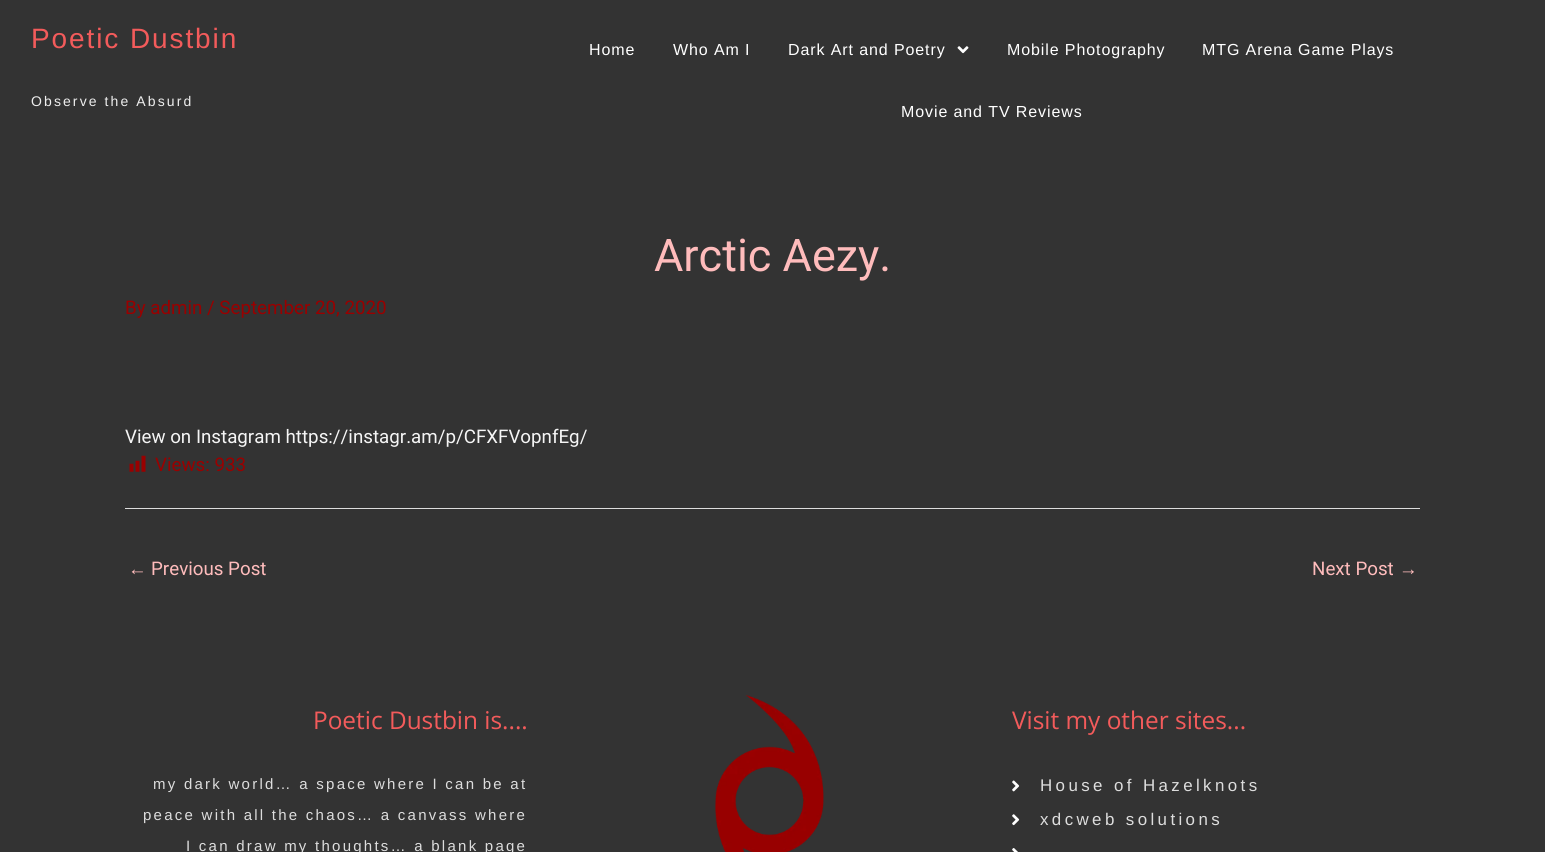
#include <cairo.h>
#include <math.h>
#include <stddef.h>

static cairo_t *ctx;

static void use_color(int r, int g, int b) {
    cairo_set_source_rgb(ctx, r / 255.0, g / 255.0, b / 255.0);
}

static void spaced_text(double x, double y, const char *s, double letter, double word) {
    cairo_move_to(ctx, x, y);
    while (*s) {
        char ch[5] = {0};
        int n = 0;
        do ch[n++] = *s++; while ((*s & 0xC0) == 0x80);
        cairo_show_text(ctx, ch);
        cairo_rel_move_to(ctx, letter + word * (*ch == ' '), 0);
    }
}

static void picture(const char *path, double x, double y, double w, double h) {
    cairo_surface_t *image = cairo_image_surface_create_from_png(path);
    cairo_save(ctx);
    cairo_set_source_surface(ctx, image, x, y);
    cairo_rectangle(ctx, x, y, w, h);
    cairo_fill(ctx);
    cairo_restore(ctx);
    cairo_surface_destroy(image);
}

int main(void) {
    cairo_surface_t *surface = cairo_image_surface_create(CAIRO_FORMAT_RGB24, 1545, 852);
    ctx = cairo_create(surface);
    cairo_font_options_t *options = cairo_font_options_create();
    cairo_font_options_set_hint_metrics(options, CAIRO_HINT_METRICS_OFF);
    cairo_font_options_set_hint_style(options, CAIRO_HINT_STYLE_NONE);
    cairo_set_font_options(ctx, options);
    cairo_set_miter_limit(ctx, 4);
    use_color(51, 51, 51);
    cairo_paint(ctx);
    cairo_select_font_face(ctx, "Liberation Sans", CAIRO_FONT_SLANT_NORMAL, CAIRO_FONT_WEIGHT_NORMAL);
    cairo_set_font_size(ctx, 28);
    use_color(243, 91, 91);
    spaced_text(31, 48, "Poetic Dustbin", 1.9, 0);
    cairo_set_font_size(ctx, 14);
    use_color(238, 238, 238);
    spaced_text(31, 106, "Observe the Absurd", 2.1, 0);
    cairo_set_font_size(ctx, 16);
    use_color(255, 255, 255);
    spaced_text(589, 55, "Home", 0.9, 0);
    spaced_text(673, 55, "Who Am I", 0.9, 0);
    spaced_text(788, 55, "Dark Art and Poetry", 0.9, 0);
    picture("img1.png", 957, 46, 12, 8);
    spaced_text(1007, 55, "Mobile Photography", 0.9, 0);
    spaced_text(1202, 55, "MTG Arena Game Plays", 0.9, 0);
    spaced_text(901, 117, "Movie and TV Reviews", 0.9, 0);
    cairo_select_font_face(ctx, "Roboto", CAIRO_FONT_SLANT_NORMAL, CAIRO_FONT_WEIGHT_NORMAL);
    cairo_set_font_size(ctx, 45);
    use_color(255, 188, 188);
    cairo_move_to(ctx, 654, 271);
    cairo_show_text(ctx, "Arctic Aezy.");
    cairo_set_font_size(ctx, 18.75);
    use_color(153, 0, 0);
    cairo_move_to(ctx, 125, 314);
    cairo_show_text(ctx, "By admin / September 20, 2020");
    use_color(245, 245, 245);
    cairo_move_to(ctx, 125, 443);
    cairo_show_text(ctx, "View on Instagram https://instagr.am/p/CFXFVopnfEg/");
    picture("img2.png", 129, 455, 17, 17);
    use_color(153, 0, 0);
    cairo_move_to(ctx, 155, 471);
    cairo_show_text(ctx, "Views: 933");
    use_color(221, 221, 221);
    cairo_rectangle(ctx, 125, 508, 1295, 1);
    cairo_fill(ctx);
    cairo_select_font_face(ctx, "Liberation Sans", CAIRO_FONT_SLANT_NORMAL, CAIRO_FONT_WEIGHT_NORMAL);
    use_color(255, 188, 188);
    cairo_move_to(ctx, 128, 575);
    cairo_show_text(ctx, "←");
    cairo_select_font_face(ctx, "Roboto", CAIRO_FONT_SLANT_NORMAL, CAIRO_FONT_WEIGHT_NORMAL);
    cairo_move_to(ctx, 151, 575);
    cairo_show_text(ctx, "Previous Post");
    cairo_move_to(ctx, 1312, 575);
    cairo_show_text(ctx, "Next Post");
    cairo_select_font_face(ctx, "Liberation Sans", CAIRO_FONT_SLANT_NORMAL, CAIRO_FONT_WEIGHT_NORMAL);
    cairo_move_to(ctx, 1399, 575);
    cairo_show_text(ctx, "→");
    cairo_select_font_face(ctx, "Open Sans", CAIRO_FONT_SLANT_NORMAL, CAIRO_FONT_WEIGHT_NORMAL);
    cairo_set_font_size(ctx, 24.4);
    use_color(243, 91, 91);
    cairo_move_to(ctx, 313, 729);
    cairo_show_text(ctx, "Poetic Dustbin is....");
    cairo_select_font_face(ctx, "Liberation Sans", CAIRO_FONT_SLANT_NORMAL, CAIRO_FONT_WEIGHT_NORMAL);
    cairo_set_font_size(ctx, 15);
    use_color(221, 221, 221);
    spaced_text(153, 789, "my dark world… a space where I can be at", 2.25, 0);
    spaced_text(143, 820, "peace with all the chaos… a canvass where", 2.25, 0);
    spaced_text(186, 851, "I can draw my thoughts… a blank page", 2.25, 0);
    picture("img3.png", 715, 695, 109, 157);
    cairo_select_font_face(ctx, "Open Sans", CAIRO_FONT_SLANT_NORMAL, CAIRO_FONT_WEIGHT_NORMAL);
    cairo_set_font_size(ctx, 24.4);
    use_color(243, 91, 91);
    cairo_move_to(ctx, 1012, 729);
    cairo_show_text(ctx, "Visit my other sites...");
    picture("img4.png", 1012, 780, 8, 12);
    cairo_select_font_face(ctx, "Liberation Sans", CAIRO_FONT_SLANT_NORMAL, CAIRO_FONT_WEIGHT_NORMAL);
    cairo_set_font_size(ctx, 16.9);
    use_color(221, 221, 221);
    spaced_text(1040, 791, "House of Hazelknots", 3.4, 0);
    picture("img5.png", 1012, 814, 8, 12);
    spaced_text(1040, 825, "xdcweb solutions", 3.4, 0);
    picture("img6.png", 1012, 848, 6, 4);
    cairo_surface_write_to_png(surface, "result.png");
    cairo_font_options_destroy(options);
    cairo_destroy(ctx);
    cairo_surface_destroy(surface);
    return 0;
}
